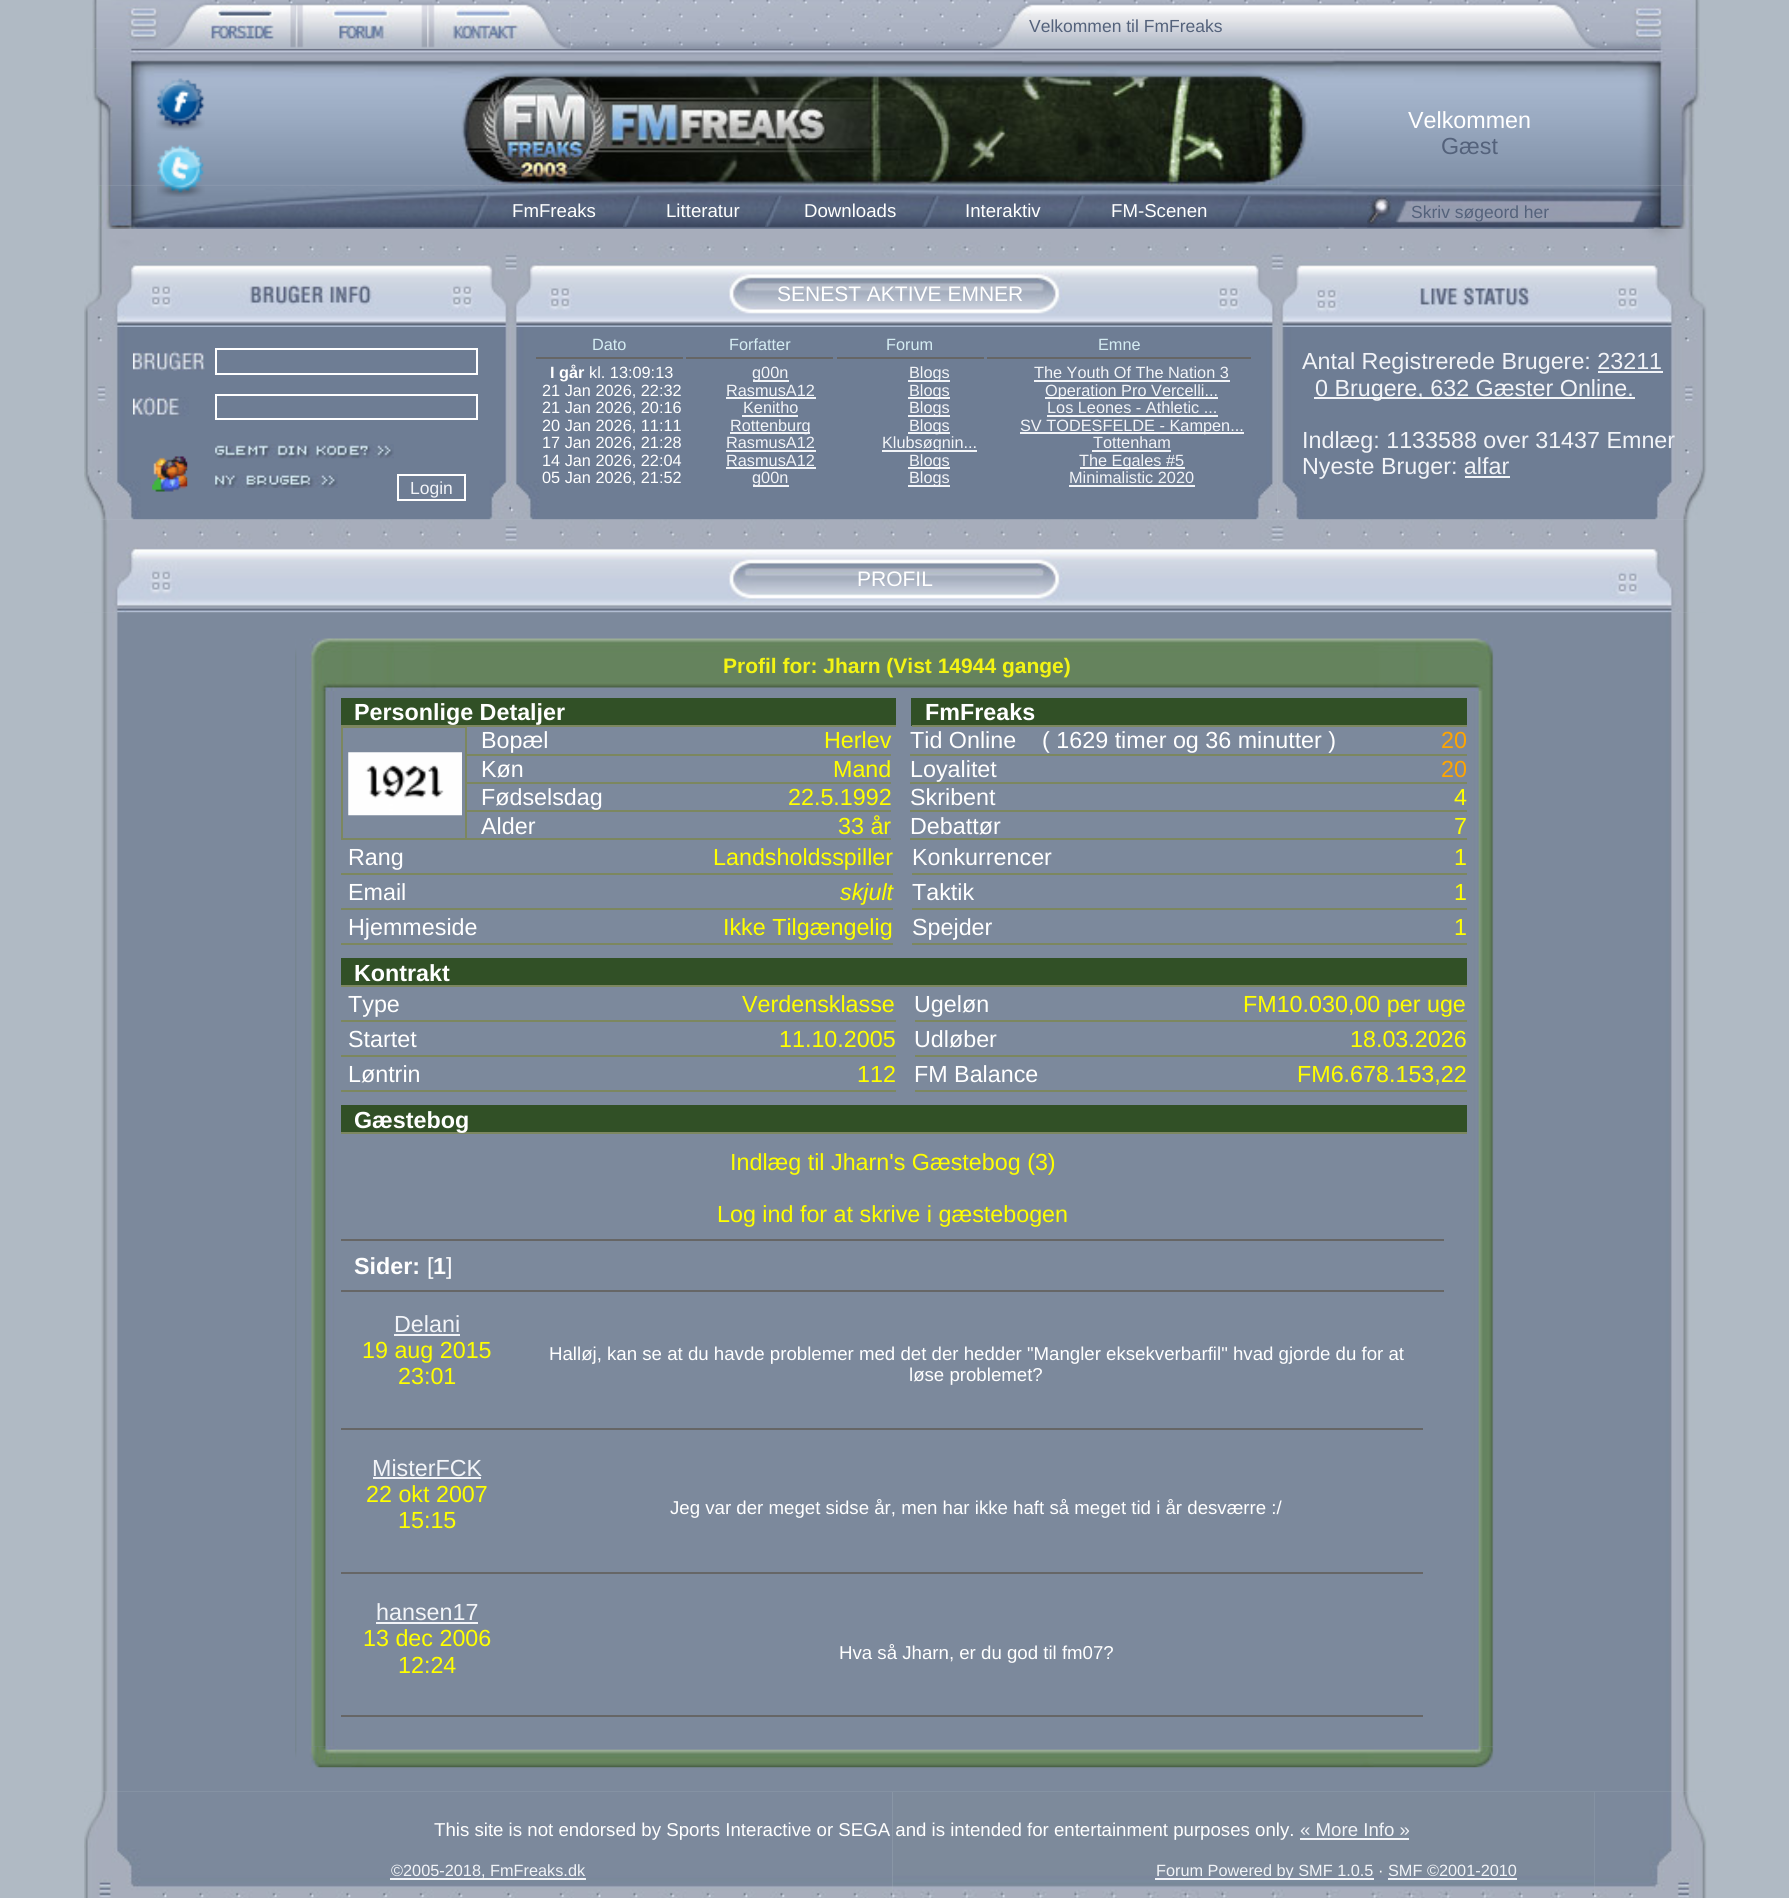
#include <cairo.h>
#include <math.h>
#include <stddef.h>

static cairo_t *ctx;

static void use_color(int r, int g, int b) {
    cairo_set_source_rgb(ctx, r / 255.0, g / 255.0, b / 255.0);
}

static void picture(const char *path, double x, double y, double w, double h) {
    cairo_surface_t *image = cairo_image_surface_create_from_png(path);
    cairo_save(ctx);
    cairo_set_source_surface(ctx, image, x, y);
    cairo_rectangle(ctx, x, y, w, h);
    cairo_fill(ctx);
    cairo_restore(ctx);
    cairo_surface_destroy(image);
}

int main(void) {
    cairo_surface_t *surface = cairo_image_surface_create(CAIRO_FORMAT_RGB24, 1789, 1898);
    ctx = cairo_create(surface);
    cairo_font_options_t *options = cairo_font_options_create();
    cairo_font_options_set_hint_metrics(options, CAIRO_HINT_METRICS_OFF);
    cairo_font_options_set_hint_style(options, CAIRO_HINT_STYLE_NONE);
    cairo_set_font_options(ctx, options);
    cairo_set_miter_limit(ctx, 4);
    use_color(176, 186, 196);
    cairo_paint(ctx);
    picture("img1.png", 92, 0, 69, 49);
    picture("img5.png", 570, 0, 1130, 49);
    picture("img6.png", 86, 48, 1620, 138);
    picture("img2.png", 161, 0, 135, 49);
    picture("img3.png", 295, 0, 132, 49);
    picture("img4.png", 427, 0, 144, 49);
    cairo_select_font_face(ctx, "Liberation Sans", CAIRO_FONT_SLANT_NORMAL, CAIRO_FONT_WEIGHT_NORMAL);
    cairo_set_font_size(ctx, 17.5);
    use_color(84, 98, 123);
    cairo_move_to(ctx, 1029, 32);
    cairo_show_text(ctx, "Velkommen til FmFreaks");
    picture("img7.png", 156, 78, 49, 53);
    picture("img9.png", 98, 185, 1596, 44);
    picture("img8.png", 157, 144, 48, 53);
    cairo_set_font_size(ctx, 23.3);
    use_color(255, 255, 255);
    cairo_move_to(ctx, 1408, 128);
    cairo_show_text(ctx, "Velkommen");
    use_color(84, 98, 123);
    cairo_move_to(ctx, 1441, 154);
    cairo_show_text(ctx, "Gæst");
    cairo_set_font_size(ctx, 18.65);
    use_color(255, 255, 255);
    cairo_move_to(ctx, 512, 217);
    cairo_show_text(ctx, "FmFreaks");
    picture("img10.png", 623, 195, 18, 33);
    cairo_move_to(ctx, 666, 217);
    cairo_show_text(ctx, "Litteratur");
    picture("img11.png", 765, 195, 17, 33);
    cairo_move_to(ctx, 804, 217);
    cairo_show_text(ctx, "Downloads");
    picture("img12.png", 922, 195, 18, 33);
    cairo_move_to(ctx, 965, 217);
    cairo_show_text(ctx, "Interaktiv");
    picture("img13.png", 1067, 195, 18, 33);
    cairo_move_to(ctx, 1111, 217);
    cairo_show_text(ctx, "FM-Scenen");
    picture("img14.png", 1234, 195, 17, 33);
    picture("img15.png", 1367, 195, 25, 33);
    cairo_set_font_size(ctx, 17.5);
    use_color(84, 98, 123);
    cairo_move_to(ctx, 1411, 218);
    cairo_show_text(ctx, "Skriv søgeord her");
    picture("img16.png", 84, 229, 1623, 98);
    cairo_set_font_size(ctx, 21);
    use_color(255, 255, 255);
    cairo_move_to(ctx, 777, 301);
    cairo_show_text(ctx, "SENEST AKTIVE EMNER");
    picture("img17.png", 511, 327, 767, 193);
    use_color(102, 102, 102);
    cairo_rectangle(ctx, 536, 357, 147, 2);
    cairo_fill(ctx);
    cairo_set_font_size(ctx, 16.3);
    use_color(213, 237, 243);
    cairo_move_to(ctx, 592, 350);
    cairo_show_text(ctx, "Dato");
    use_color(102, 102, 102);
    cairo_rectangle(ctx, 686, 357, 147, 2);
    cairo_fill(ctx);
    use_color(213, 237, 243);
    cairo_move_to(ctx, 729, 350);
    cairo_show_text(ctx, "Forfatter");
    use_color(102, 102, 102);
    cairo_rectangle(ctx, 837, 357, 147, 2);
    cairo_fill(ctx);
    use_color(213, 237, 243);
    cairo_move_to(ctx, 886, 350);
    cairo_show_text(ctx, "Forum");
    use_color(102, 102, 102);
    cairo_rectangle(ctx, 987, 357, 264, 2);
    cairo_fill(ctx);
    use_color(213, 237, 243);
    cairo_move_to(ctx, 1098, 350);
    cairo_show_text(ctx, "Emne");
    cairo_select_font_face(ctx, "Liberation Sans", CAIRO_FONT_SLANT_NORMAL, CAIRO_FONT_WEIGHT_BOLD);
    use_color(255, 255, 255);
    cairo_move_to(ctx, 550, 378);
    cairo_show_text(ctx, "I går");
    cairo_select_font_face(ctx, "Liberation Sans", CAIRO_FONT_SLANT_NORMAL, CAIRO_FONT_WEIGHT_NORMAL);
    cairo_move_to(ctx, 589, 378);
    cairo_show_text(ctx, "kl. 13:09:13");
    use_color(242, 244, 248);
    cairo_rectangle(ctx, 753, 380, 36, 2);
    cairo_fill(ctx);
    cairo_move_to(ctx, 752, 378);
    cairo_show_text(ctx, "g00n");
    cairo_rectangle(ctx, 908, 380, 42, 2);
    cairo_fill(ctx);
    cairo_move_to(ctx, 909, 378);
    cairo_show_text(ctx, "Blogs");
    cairo_move_to(ctx, 1034, 378);
    cairo_show_text(ctx, "The Youth Of The Nation 3");
    cairo_rectangle(ctx, 1034, 380, 196, 2);
    cairo_fill(ctx);
    use_color(255, 255, 255);
    cairo_move_to(ctx, 542, 396);
    cairo_show_text(ctx, "21 Jan 2026, 22:32");
    use_color(242, 244, 248);
    cairo_move_to(ctx, 726, 396);
    cairo_show_text(ctx, "RasmusA12");
    cairo_rectangle(ctx, 726, 397, 90, 2);
    cairo_fill(ctx);
    cairo_rectangle(ctx, 908, 397, 42, 2);
    cairo_fill(ctx);
    cairo_move_to(ctx, 909, 396);
    cairo_show_text(ctx, "Blogs");
    cairo_rectangle(ctx, 1045, 397, 173, 2);
    cairo_fill(ctx);
    cairo_move_to(ctx, 1045, 396);
    cairo_show_text(ctx, "Operation Pro Vercelli...");
    use_color(255, 255, 255);
    cairo_move_to(ctx, 542, 413);
    cairo_show_text(ctx, "21 Jan 2026, 20:16");
    use_color(242, 244, 248);
    cairo_move_to(ctx, 743, 413);
    cairo_show_text(ctx, "Kenitho");
    cairo_rectangle(ctx, 742, 415, 56, 2);
    cairo_fill(ctx);
    cairo_rectangle(ctx, 908, 415, 42, 2);
    cairo_fill(ctx);
    cairo_move_to(ctx, 909, 413);
    cairo_show_text(ctx, "Blogs");
    cairo_move_to(ctx, 1047, 413);
    cairo_show_text(ctx, "Los Leones - Athletic ...");
    cairo_rectangle(ctx, 1047, 415, 171, 2);
    cairo_fill(ctx);
    use_color(255, 255, 255);
    cairo_move_to(ctx, 542, 431);
    cairo_show_text(ctx, "20 Jan 2026, 11:11");
    use_color(242, 244, 248);
    cairo_rectangle(ctx, 730, 432, 80, 2);
    cairo_fill(ctx);
    cairo_move_to(ctx, 730, 431);
    cairo_show_text(ctx, "Rottenburg");
    cairo_rectangle(ctx, 908, 432, 42, 2);
    cairo_fill(ctx);
    cairo_move_to(ctx, 909, 431);
    cairo_show_text(ctx, "Blogs");
    cairo_rectangle(ctx, 1020, 432, 224, 2);
    cairo_fill(ctx);
    cairo_move_to(ctx, 1020, 431);
    cairo_show_text(ctx, "SV TODESFELDE - Kampen...");
    use_color(255, 255, 255);
    cairo_move_to(ctx, 542, 448);
    cairo_show_text(ctx, "17 Jan 2026, 21:28");
    use_color(242, 244, 248);
    cairo_move_to(ctx, 726, 448);
    cairo_show_text(ctx, "RasmusA12");
    cairo_rectangle(ctx, 726, 450, 90, 2);
    cairo_fill(ctx);
    cairo_rectangle(ctx, 882, 450, 95, 2);
    cairo_fill(ctx);
    cairo_move_to(ctx, 882, 448);
    cairo_show_text(ctx, "Klubsøgnin...");
    cairo_move_to(ctx, 1093, 448);
    cairo_show_text(ctx, "Tottenham");
    cairo_rectangle(ctx, 1092, 450, 79, 2);
    cairo_fill(ctx);
    use_color(255, 255, 255);
    cairo_move_to(ctx, 542, 466);
    cairo_show_text(ctx, "14 Jan 2026, 22:04");
    use_color(242, 244, 248);
    cairo_move_to(ctx, 726, 466);
    cairo_show_text(ctx, "RasmusA12");
    cairo_rectangle(ctx, 726, 467, 90, 2);
    cairo_fill(ctx);
    cairo_rectangle(ctx, 908, 467, 42, 2);
    cairo_fill(ctx);
    cairo_move_to(ctx, 909, 466);
    cairo_show_text(ctx, "Blogs");
    cairo_rectangle(ctx, 1080, 467, 105, 2);
    cairo_fill(ctx);
    cairo_move_to(ctx, 1079, 466);
    cairo_show_text(ctx, "The Egales #5");
    use_color(255, 255, 255);
    cairo_move_to(ctx, 542, 483);
    cairo_show_text(ctx, "05 Jan 2026, 21:52");
    use_color(242, 244, 248);
    cairo_rectangle(ctx, 753, 485, 36, 2);
    cairo_fill(ctx);
    cairo_move_to(ctx, 752, 483);
    cairo_show_text(ctx, "g00n");
    cairo_rectangle(ctx, 908, 485, 42, 2);
    cairo_fill(ctx);
    cairo_move_to(ctx, 909, 483);
    cairo_show_text(ctx, "Blogs");
    cairo_move_to(ctx, 1069, 483);
    cairo_show_text(ctx, "Minimalistic 2020");
    cairo_rectangle(ctx, 1069, 485, 126, 2);
    cairo_fill(ctx);
    picture("img18.png", 1277, 327, 430, 193);
    cairo_set_font_size(ctx, 23.3);
    cairo_move_to(ctx, 1302, 369);
    cairo_show_text(ctx, "Antal Registrerede Brugere: 23211");
    cairo_rectangle(ctx, 1598, 371, 65, 2);
    cairo_fill(ctx);
    cairo_rectangle(ctx, 1314, 397, 321, 2);
    cairo_fill(ctx);
    cairo_move_to(ctx, 1315, 396);
    cairo_show_text(ctx, "0 Brugere, 632 Gæster Online.");
    cairo_move_to(ctx, 1302, 448);
    cairo_show_text(ctx, "Indlæg: 1133588 over 31437 Emner");
    cairo_move_to(ctx, 1302, 474);
    cairo_show_text(ctx, "Nyeste Bruger: alfar");
    cairo_rectangle(ctx, 1465, 476, 45, 2);
    cairo_fill(ctx);
    picture("img19.png", 84, 327, 427, 193);
    picture("img20.png", 133, 351, 72, 20);
    cairo_rectangle(ctx, 216, 349, 261, 25);
    use_color(255, 255, 255);
    cairo_stroke(ctx);
    picture("img21.png", 133, 397, 56, 20);
    cairo_rectangle(ctx, 216, 395, 261, 24);
    cairo_stroke(ctx);
    picture("img22.png", 215, 444, 179, 15);
    picture("img23.png", 152, 456, 36, 36);
    picture("img24.png", 215, 474, 123, 14);
    cairo_rectangle(ctx, 398, 475, 67, 25);
    cairo_stroke(ctx);
    cairo_set_font_size(ctx, 17.5);
    use_color(242, 244, 248);
    cairo_move_to(ctx, 410, 494);
    cairo_show_text(ctx, "Login");
    picture("img25.png", 101, 519, 1588, 94);
    cairo_set_font_size(ctx, 21);
    use_color(255, 255, 255);
    cairo_move_to(ctx, 857, 586);
    cairo_show_text(ctx, "PROFIL");
    picture("img26.png", 84, 612, 1622, 1180);
    picture("img27.png", 295, 638, 1199, 53);
    cairo_select_font_face(ctx, "Liberation Sans", CAIRO_FONT_SLANT_NORMAL, CAIRO_FONT_WEIGHT_BOLD);
    use_color(243, 244, 20);
    cairo_move_to(ctx, 723, 673);
    cairo_show_text(ctx, "Profil for: Jharn (Vist 14944 gange)");
    picture("img28.png", 295, 691, 1199, 1056);
    use_color(49, 80, 38);
    cairo_rectangle(ctx, 341, 698, 555, 27);
    cairo_fill(ctx);
    use_color(124, 135, 95);
    cairo_rectangle(ctx, 341, 725, 555, 2);
    cairo_fill(ctx);
    cairo_set_font_size(ctx, 23.3);
    use_color(255, 255, 255);
    cairo_move_to(ctx, 354, 720);
    cairo_show_text(ctx, "Personlige Detaljer");
    use_color(49, 80, 38);
    cairo_rectangle(ctx, 911, 698, 556, 28);
    cairo_fill(ctx);
    use_color(124, 135, 95);
    cairo_rectangle(ctx, 912, 725, 555, 2);
    cairo_fill(ctx);
    use_color(255, 255, 255);
    cairo_move_to(ctx, 925, 720);
    cairo_show_text(ctx, "FmFreaks");
    cairo_rectangle(ctx, 342, 727, 124, 112);
    use_color(124, 135, 95);
    cairo_stroke(ctx);
    picture("img29.png", 348, 752, 114, 64);
    cairo_rectangle(ctx, 467, 754, 424, 2);
    cairo_fill(ctx);
    cairo_select_font_face(ctx, "Liberation Sans", CAIRO_FONT_SLANT_NORMAL, CAIRO_FONT_WEIGHT_NORMAL);
    use_color(255, 255, 255);
    cairo_move_to(ctx, 481, 748);
    cairo_show_text(ctx, "Bopæl");
    use_color(255, 255, 0);
    cairo_move_to(ctx, 824, 748);
    cairo_show_text(ctx, "Herlev");
    use_color(124, 135, 95);
    cairo_rectangle(ctx, 910, 754, 557, 2);
    cairo_fill(ctx);
    use_color(255, 255, 255);
    cairo_move_to(ctx, 910, 748);
    cairo_show_text(ctx, "Tid Online    ( 1629 timer og 36 minutter )");
    use_color(255, 165, 0);
    cairo_move_to(ctx, 1441, 748);
    cairo_show_text(ctx, "20");
    use_color(124, 135, 95);
    cairo_rectangle(ctx, 467, 782, 424, 2);
    cairo_fill(ctx);
    use_color(255, 255, 255);
    cairo_move_to(ctx, 481, 777);
    cairo_show_text(ctx, "Køn");
    use_color(255, 255, 0);
    cairo_move_to(ctx, 833, 777);
    cairo_show_text(ctx, "Mand");
    use_color(124, 135, 95);
    cairo_rectangle(ctx, 910, 782, 557, 2);
    cairo_fill(ctx);
    use_color(255, 255, 255);
    cairo_move_to(ctx, 910, 777);
    cairo_show_text(ctx, "Loyalitet");
    use_color(255, 165, 0);
    cairo_move_to(ctx, 1441, 777);
    cairo_show_text(ctx, "20");
    use_color(124, 135, 95);
    cairo_rectangle(ctx, 467, 810, 424, 2);
    cairo_fill(ctx);
    use_color(255, 255, 255);
    cairo_move_to(ctx, 481, 805);
    cairo_show_text(ctx, "Fødselsdag");
    use_color(255, 255, 0);
    cairo_move_to(ctx, 788, 805);
    cairo_show_text(ctx, "22.5.1992");
    use_color(124, 135, 95);
    cairo_rectangle(ctx, 910, 810, 557, 2);
    cairo_fill(ctx);
    use_color(255, 255, 255);
    cairo_move_to(ctx, 910, 805);
    cairo_show_text(ctx, "Skribent");
    use_color(255, 255, 0);
    cairo_move_to(ctx, 1454, 805);
    cairo_show_text(ctx, "4");
    use_color(124, 135, 95);
    cairo_rectangle(ctx, 467, 838, 424, 2);
    cairo_fill(ctx);
    use_color(255, 255, 255);
    cairo_move_to(ctx, 481, 834);
    cairo_show_text(ctx, "Alder");
    use_color(255, 255, 0);
    cairo_move_to(ctx, 838, 834);
    cairo_show_text(ctx, "33 år");
    use_color(124, 135, 95);
    cairo_rectangle(ctx, 910, 838, 557, 2);
    cairo_fill(ctx);
    use_color(255, 255, 255);
    cairo_move_to(ctx, 910, 834);
    cairo_show_text(ctx, "Debattør");
    use_color(255, 255, 0);
    cairo_move_to(ctx, 1454, 834);
    cairo_show_text(ctx, "7");
    use_color(124, 135, 95);
    cairo_rectangle(ctx, 341, 873, 552, 2);
    cairo_fill(ctx);
    use_color(255, 255, 255);
    cairo_move_to(ctx, 348, 865);
    cairo_show_text(ctx, "Rang");
    use_color(255, 255, 0);
    cairo_move_to(ctx, 713, 865);
    cairo_show_text(ctx, "Landsholdsspiller");
    use_color(124, 135, 95);
    cairo_rectangle(ctx, 912, 873, 555, 2);
    cairo_fill(ctx);
    use_color(255, 255, 255);
    cairo_move_to(ctx, 912, 865);
    cairo_show_text(ctx, "Konkurrencer");
    use_color(255, 255, 0);
    cairo_move_to(ctx, 1454, 865);
    cairo_show_text(ctx, "1");
    use_color(124, 135, 95);
    cairo_rectangle(ctx, 341, 908, 552, 2);
    cairo_fill(ctx);
    use_color(255, 255, 255);
    cairo_move_to(ctx, 348, 900);
    cairo_show_text(ctx, "Email");
    cairo_select_font_face(ctx, "Liberation Sans", CAIRO_FONT_SLANT_ITALIC, CAIRO_FONT_WEIGHT_NORMAL);
    use_color(255, 255, 0);
    cairo_move_to(ctx, 840, 900);
    cairo_show_text(ctx, "skjult");
    use_color(124, 135, 95);
    cairo_rectangle(ctx, 912, 908, 555, 2);
    cairo_fill(ctx);
    cairo_select_font_face(ctx, "Liberation Sans", CAIRO_FONT_SLANT_NORMAL, CAIRO_FONT_WEIGHT_NORMAL);
    use_color(255, 255, 255);
    cairo_move_to(ctx, 912, 900);
    cairo_show_text(ctx, "Taktik");
    use_color(255, 255, 0);
    cairo_move_to(ctx, 1454, 900);
    cairo_show_text(ctx, "1");
    use_color(124, 135, 95);
    cairo_rectangle(ctx, 341, 943, 552, 2);
    cairo_fill(ctx);
    use_color(255, 255, 255);
    cairo_move_to(ctx, 348, 935);
    cairo_show_text(ctx, "Hjemmeside");
    use_color(255, 255, 0);
    cairo_move_to(ctx, 723, 935);
    cairo_show_text(ctx, "Ikke Tilgængelig");
    use_color(124, 135, 95);
    cairo_rectangle(ctx, 912, 943, 555, 2);
    cairo_fill(ctx);
    use_color(255, 255, 255);
    cairo_move_to(ctx, 912, 935);
    cairo_show_text(ctx, "Spejder");
    use_color(255, 255, 0);
    cairo_move_to(ctx, 1454, 935);
    cairo_show_text(ctx, "1");
    use_color(49, 80, 38);
    cairo_rectangle(ctx, 341, 958, 1126, 27);
    cairo_fill(ctx);
    use_color(124, 135, 95);
    cairo_rectangle(ctx, 341, 985, 1126, 2);
    cairo_fill(ctx);
    cairo_select_font_face(ctx, "Liberation Sans", CAIRO_FONT_SLANT_NORMAL, CAIRO_FONT_WEIGHT_BOLD);
    use_color(255, 255, 255);
    cairo_move_to(ctx, 354, 981);
    cairo_show_text(ctx, "Kontrakt");
    use_color(124, 135, 95);
    cairo_rectangle(ctx, 341, 1020, 555, 2);
    cairo_fill(ctx);
    cairo_select_font_face(ctx, "Liberation Sans", CAIRO_FONT_SLANT_NORMAL, CAIRO_FONT_WEIGHT_NORMAL);
    use_color(255, 255, 255);
    cairo_move_to(ctx, 348, 1012);
    cairo_show_text(ctx, "Type");
    use_color(255, 255, 0);
    cairo_move_to(ctx, 742, 1012);
    cairo_show_text(ctx, "Verdensklasse");
    use_color(124, 135, 95);
    cairo_rectangle(ctx, 915, 1020, 552, 2);
    cairo_fill(ctx);
    use_color(255, 255, 255);
    cairo_move_to(ctx, 914, 1012);
    cairo_show_text(ctx, "Ugeløn");
    use_color(255, 255, 0);
    cairo_move_to(ctx, 1243, 1012);
    cairo_show_text(ctx, "FM10.030,00 per uge");
    use_color(124, 135, 95);
    cairo_rectangle(ctx, 341, 1055, 555, 2);
    cairo_fill(ctx);
    use_color(255, 255, 255);
    cairo_move_to(ctx, 348, 1047);
    cairo_show_text(ctx, "Startet");
    use_color(255, 255, 0);
    cairo_move_to(ctx, 779, 1047);
    cairo_show_text(ctx, "11.10.2005");
    use_color(124, 135, 95);
    cairo_rectangle(ctx, 915, 1055, 552, 2);
    cairo_fill(ctx);
    use_color(255, 255, 255);
    cairo_move_to(ctx, 914, 1047);
    cairo_show_text(ctx, "Udløber");
    use_color(255, 255, 0);
    cairo_move_to(ctx, 1350, 1047);
    cairo_show_text(ctx, "18.03.2026");
    use_color(124, 135, 95);
    cairo_rectangle(ctx, 341, 1090, 555, 2);
    cairo_fill(ctx);
    use_color(255, 255, 255);
    cairo_move_to(ctx, 348, 1082);
    cairo_show_text(ctx, "Løntrin");
    use_color(255, 255, 0);
    cairo_move_to(ctx, 857, 1082);
    cairo_show_text(ctx, "112");
    use_color(124, 135, 95);
    cairo_rectangle(ctx, 915, 1090, 552, 2);
    cairo_fill(ctx);
    use_color(255, 255, 255);
    cairo_move_to(ctx, 914, 1082);
    cairo_show_text(ctx, "FM Balance");
    use_color(255, 255, 0);
    cairo_move_to(ctx, 1297, 1082);
    cairo_show_text(ctx, "FM6.678.153,22");
    use_color(49, 80, 38);
    cairo_rectangle(ctx, 341, 1105, 1126, 27);
    cairo_fill(ctx);
    use_color(124, 135, 95);
    cairo_rectangle(ctx, 341, 1132, 1126, 2);
    cairo_fill(ctx);
    cairo_select_font_face(ctx, "Liberation Sans", CAIRO_FONT_SLANT_NORMAL, CAIRO_FONT_WEIGHT_BOLD);
    use_color(255, 255, 255);
    cairo_move_to(ctx, 354, 1128);
    cairo_show_text(ctx, "Gæstebog");
    cairo_select_font_face(ctx, "Liberation Sans", CAIRO_FONT_SLANT_NORMAL, CAIRO_FONT_WEIGHT_NORMAL);
    use_color(255, 255, 0);
    cairo_move_to(ctx, 730, 1170);
    cairo_show_text(ctx, "Indlæg til Jharn's Gæstebog (3)");
    cairo_move_to(ctx, 717, 1222);
    cairo_show_text(ctx, "Log ind for at skrive i gæstebogen");
    use_color(102, 102, 102);
    cairo_rectangle(ctx, 341, 1239, 1103, 2);
    cairo_fill(ctx);
    cairo_select_font_face(ctx, "Liberation Sans", CAIRO_FONT_SLANT_NORMAL, CAIRO_FONT_WEIGHT_BOLD);
    use_color(255, 255, 255);
    cairo_move_to(ctx, 354, 1274);
    cairo_show_text(ctx, "Sider:");
    cairo_select_font_face(ctx, "Liberation Sans", CAIRO_FONT_SLANT_NORMAL, CAIRO_FONT_WEIGHT_NORMAL);
    cairo_move_to(ctx, 427, 1274);
    cairo_show_text(ctx, "[");
    cairo_select_font_face(ctx, "Liberation Sans", CAIRO_FONT_SLANT_NORMAL, CAIRO_FONT_WEIGHT_BOLD);
    cairo_move_to(ctx, 433, 1274);
    cairo_show_text(ctx, "1");
    cairo_select_font_face(ctx, "Liberation Sans", CAIRO_FONT_SLANT_NORMAL, CAIRO_FONT_WEIGHT_NORMAL);
    cairo_move_to(ctx, 446, 1274);
    cairo_show_text(ctx, "]");
    use_color(102, 102, 102);
    cairo_rectangle(ctx, 341, 1290, 1103, 2);
    cairo_fill(ctx);
    use_color(242, 244, 248);
    cairo_move_to(ctx, 394, 1332);
    cairo_show_text(ctx, "Delani");
    cairo_rectangle(ctx, 394, 1334, 66, 2);
    cairo_fill(ctx);
    use_color(255, 255, 0);
    cairo_move_to(ctx, 362, 1358);
    cairo_show_text(ctx, "19 aug 2015");
    cairo_move_to(ctx, 398, 1384);
    cairo_show_text(ctx, "23:01");
    cairo_set_font_size(ctx, 18.65);
    use_color(255, 255, 255);
    cairo_move_to(ctx, 549, 1360);
    cairo_show_text(ctx, "Halløj, kan se at du havde problemer med det der hedder \"Mangler eksekverbarfil\" hvad gjorde du for at");
    cairo_move_to(ctx, 909, 1381);
    cairo_show_text(ctx, "løse problemet?");
    use_color(102, 102, 102);
    cairo_rectangle(ctx, 341, 1428, 1082, 2);
    cairo_fill(ctx);
    cairo_set_font_size(ctx, 23.3);
    use_color(242, 244, 248);
    cairo_move_to(ctx, 372, 1476);
    cairo_show_text(ctx, "MisterFCK");
    cairo_rectangle(ctx, 373, 1477, 108, 2);
    cairo_fill(ctx);
    use_color(255, 255, 0);
    cairo_move_to(ctx, 366, 1502);
    cairo_show_text(ctx, "22 okt 2007");
    cairo_move_to(ctx, 398, 1528);
    cairo_show_text(ctx, "15:15");
    cairo_set_font_size(ctx, 18.65);
    use_color(255, 255, 255);
    cairo_move_to(ctx, 670, 1514);
    cairo_show_text(ctx, "Jeg var der meget sidse år, men har ikke haft så meget tid i år desværre :/");
    use_color(102, 102, 102);
    cairo_rectangle(ctx, 341, 1572, 1082, 2);
    cairo_fill(ctx);
    cairo_set_font_size(ctx, 23.3);
    use_color(242, 244, 248);
    cairo_move_to(ctx, 376, 1620);
    cairo_show_text(ctx, "hansen17");
    cairo_rectangle(ctx, 376, 1622, 102, 2);
    cairo_fill(ctx);
    use_color(255, 255, 0);
    cairo_move_to(ctx, 363, 1646);
    cairo_show_text(ctx, "13 dec 2006");
    cairo_move_to(ctx, 398, 1673);
    cairo_show_text(ctx, "12:24");
    cairo_set_font_size(ctx, 18.65);
    use_color(255, 255, 255);
    cairo_move_to(ctx, 839, 1659);
    cairo_show_text(ctx, "Hva så Jharn, er du god til fm07?");
    use_color(102, 102, 102);
    cairo_rectangle(ctx, 341, 1715, 1082, 2);
    cairo_fill(ctx);
    picture("img30.png", 295, 1746, 1199, 22);
    picture("img31.png", 84, 1791, 809, 107);
    picture("img32.png", 892, 1791, 703, 107);
    use_color(255, 255, 255);
    cairo_move_to(ctx, 434, 1836);
    cairo_show_text(ctx, "This site is not endorsed by Sports Interactive or SEGA and is intended for entertainment purposes only.");
    use_color(242, 244, 248);
    cairo_move_to(ctx, 1300, 1836);
    cairo_show_text(ctx, "« More Info »");
    cairo_rectangle(ctx, 1300, 1838, 109, 2);
    cairo_fill(ctx);
    cairo_rectangle(ctx, 390, 1878, 196, 2);
    cairo_fill(ctx);
    cairo_set_font_size(ctx, 16.3);
    cairo_move_to(ctx, 391, 1876);
    cairo_show_text(ctx, "©2005-2018, FmFreaks.dk");
    cairo_rectangle(ctx, 1155, 1878, 219, 2);
    cairo_fill(ctx);
    cairo_move_to(ctx, 1156, 1876);
    cairo_show_text(ctx, "Forum Powered by SMF 1.0.5");
    use_color(255, 255, 255);
    cairo_move_to(ctx, 1378, 1876);
    cairo_show_text(ctx, "·");
    use_color(242, 244, 248);
    cairo_move_to(ctx, 1388, 1876);
    cairo_show_text(ctx, "SMF ©2001-2010");
    cairo_rectangle(ctx, 1388, 1878, 129, 2);
    cairo_fill(ctx);
    picture("img33.png", 1594, 1791, 113, 107);
    cairo_surface_write_to_png(surface, "result.png");
    cairo_font_options_destroy(options);
    cairo_destroy(ctx);
    cairo_surface_destroy(surface);
    return 0;
}
